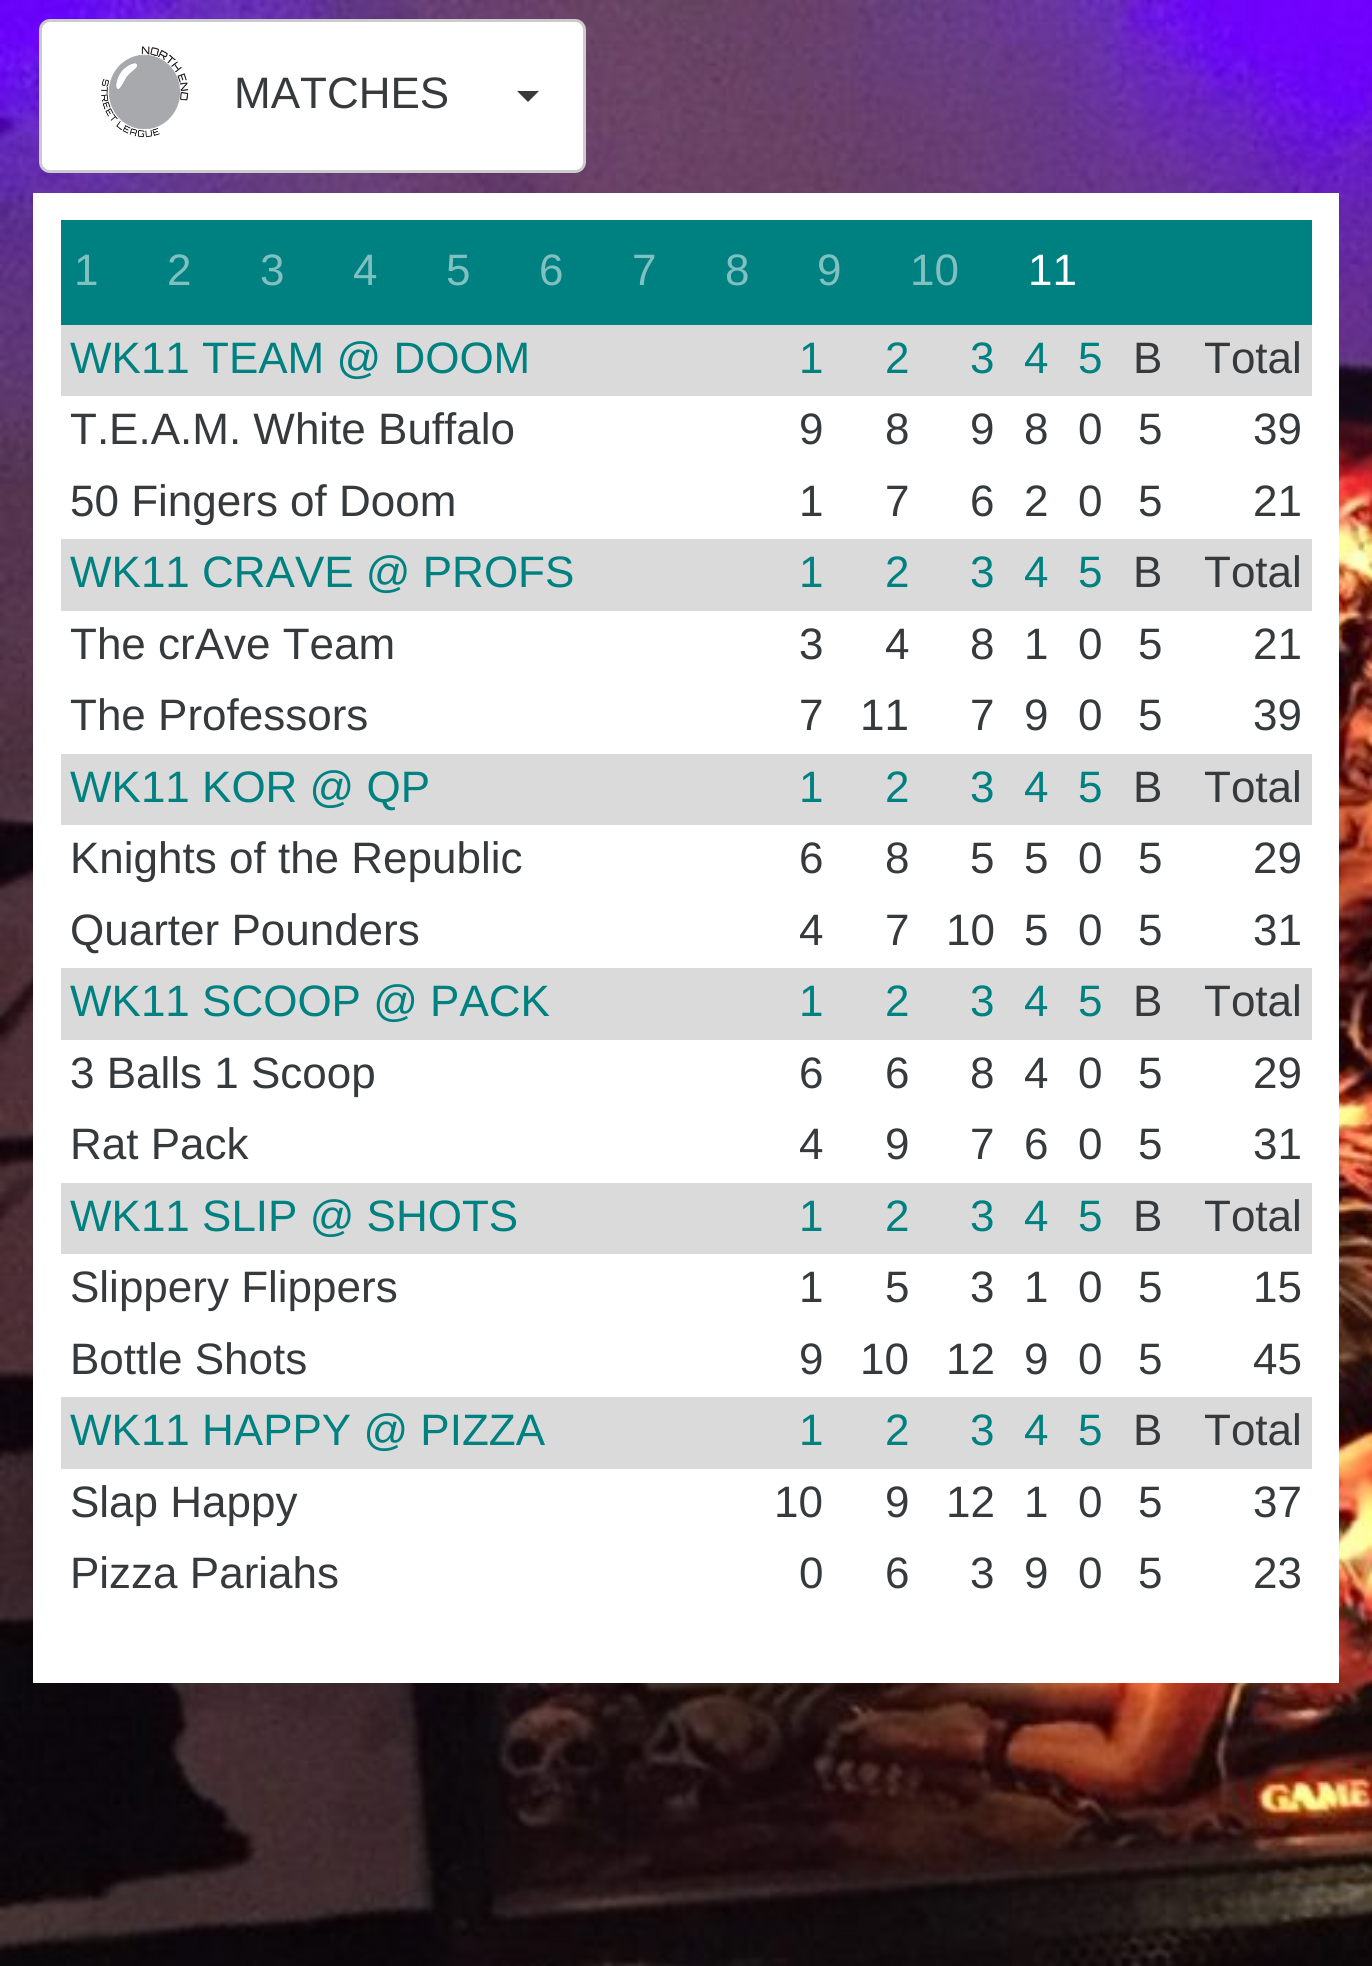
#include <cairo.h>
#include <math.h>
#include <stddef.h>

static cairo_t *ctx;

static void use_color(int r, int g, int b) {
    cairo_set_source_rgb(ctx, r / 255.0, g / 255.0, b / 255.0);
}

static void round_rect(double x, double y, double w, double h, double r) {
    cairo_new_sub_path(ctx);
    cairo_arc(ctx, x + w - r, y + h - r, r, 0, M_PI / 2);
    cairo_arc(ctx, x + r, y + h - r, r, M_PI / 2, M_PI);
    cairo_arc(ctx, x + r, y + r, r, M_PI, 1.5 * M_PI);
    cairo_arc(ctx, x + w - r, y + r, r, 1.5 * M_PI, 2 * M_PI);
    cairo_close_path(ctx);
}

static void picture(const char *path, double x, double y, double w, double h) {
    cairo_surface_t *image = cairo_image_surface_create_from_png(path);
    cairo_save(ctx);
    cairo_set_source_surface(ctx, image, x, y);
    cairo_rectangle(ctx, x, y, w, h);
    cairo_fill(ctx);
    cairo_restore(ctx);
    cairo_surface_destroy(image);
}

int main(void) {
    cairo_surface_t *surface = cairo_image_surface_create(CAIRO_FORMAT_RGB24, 1372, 1966);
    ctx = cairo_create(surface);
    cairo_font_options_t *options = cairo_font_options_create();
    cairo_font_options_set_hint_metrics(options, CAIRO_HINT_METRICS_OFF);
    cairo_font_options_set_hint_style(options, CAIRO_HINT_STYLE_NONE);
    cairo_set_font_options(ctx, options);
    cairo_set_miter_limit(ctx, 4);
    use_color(255, 255, 255);
    cairo_paint(ctx);
    picture("img1.png", 0, 0, 1372, 1966);
    use_color(255, 255, 255);
    round_rect(40.5, 20.5, 544, 151, 9.5);
    cairo_fill_preserve(ctx);
    use_color(204, 204, 204);
    cairo_set_line_width(ctx, 3);
    cairo_stroke(ctx);
    picture("img2.png", 101, 46, 88, 92);
    cairo_select_font_face(ctx, "Liberation Sans", CAIRO_FONT_SLANT_NORMAL, CAIRO_FONT_WEIGHT_NORMAL);
    cairo_set_font_size(ctx, 44);
    use_color(55, 58, 60);
    cairo_move_to(ctx, 234, 108);
    cairo_show_text(ctx, "MATCHES");
    cairo_new_path(ctx);
    cairo_move_to(ctx, 517, 91);
    cairo_line_to(ctx, 539, 91);
    cairo_line_to(ctx, 528, 102);
    cairo_close_path(ctx);
    cairo_fill(ctx);
    use_color(255, 255, 255);
    cairo_rectangle(ctx, 33, 193, 1306, 1490);
    cairo_fill(ctx);
    use_color(0, 129, 129);
    cairo_rectangle(ctx, 61, 220, 1251, 105);
    cairo_fill(ctx);
    use_color(128, 192, 192);
    cairo_move_to(ctx, 74, 285);
    cairo_show_text(ctx, "1");
    cairo_move_to(ctx, 167, 285);
    cairo_show_text(ctx, "2");
    cairo_move_to(ctx, 260, 285);
    cairo_show_text(ctx, "3");
    cairo_move_to(ctx, 353, 285);
    cairo_show_text(ctx, "4");
    cairo_move_to(ctx, 446, 285);
    cairo_show_text(ctx, "5");
    cairo_move_to(ctx, 539, 285);
    cairo_show_text(ctx, "6");
    cairo_move_to(ctx, 632, 285);
    cairo_show_text(ctx, "7");
    cairo_move_to(ctx, 725, 285);
    cairo_show_text(ctx, "8");
    cairo_move_to(ctx, 817, 285);
    cairo_show_text(ctx, "9");
    cairo_move_to(ctx, 910, 285);
    cairo_show_text(ctx, "10");
    use_color(255, 255, 255);
    cairo_move_to(ctx, 1028, 285);
    cairo_show_text(ctx, "11");
    use_color(218, 218, 218);
    cairo_rectangle(ctx, 61, 325, 1251, 71);
    cairo_fill(ctx);
    use_color(0, 129, 129);
    cairo_move_to(ctx, 70, 373);
    cairo_show_text(ctx, "WK11 TEAM @ DOOM");
    cairo_move_to(ctx, 799, 373);
    cairo_show_text(ctx, "1");
    cairo_move_to(ctx, 885, 373);
    cairo_show_text(ctx, "2");
    cairo_move_to(ctx, 970, 373);
    cairo_show_text(ctx, "3");
    cairo_move_to(ctx, 1024, 373);
    cairo_show_text(ctx, "4");
    cairo_move_to(ctx, 1078, 373);
    cairo_show_text(ctx, "5");
    use_color(55, 58, 60);
    cairo_move_to(ctx, 1133, 373);
    cairo_show_text(ctx, "B");
    cairo_move_to(ctx, 1204, 373);
    cairo_show_text(ctx, "Total");
    cairo_move_to(ctx, 70, 444);
    cairo_show_text(ctx, "T.E.A.M. White Buffalo");
    cairo_move_to(ctx, 799, 444);
    cairo_show_text(ctx, "9");
    cairo_move_to(ctx, 885, 444);
    cairo_show_text(ctx, "8");
    cairo_move_to(ctx, 970, 444);
    cairo_show_text(ctx, "9");
    cairo_move_to(ctx, 1024, 444);
    cairo_show_text(ctx, "8");
    cairo_move_to(ctx, 1078, 444);
    cairo_show_text(ctx, "0");
    cairo_move_to(ctx, 1138, 444);
    cairo_show_text(ctx, "5");
    cairo_move_to(ctx, 1253, 444);
    cairo_show_text(ctx, "39");
    cairo_move_to(ctx, 70, 516);
    cairo_show_text(ctx, "50 Fingers of Doom");
    cairo_move_to(ctx, 799, 516);
    cairo_show_text(ctx, "1");
    cairo_move_to(ctx, 885, 516);
    cairo_show_text(ctx, "7");
    cairo_move_to(ctx, 970, 516);
    cairo_show_text(ctx, "6");
    cairo_move_to(ctx, 1024, 516);
    cairo_show_text(ctx, "2");
    cairo_move_to(ctx, 1078, 516);
    cairo_show_text(ctx, "0");
    cairo_move_to(ctx, 1138, 516);
    cairo_show_text(ctx, "5");
    cairo_move_to(ctx, 1253, 516);
    cairo_show_text(ctx, "21");
    use_color(218, 218, 218);
    cairo_rectangle(ctx, 61, 539, 1251, 72);
    cairo_fill(ctx);
    use_color(0, 129, 129);
    cairo_move_to(ctx, 70, 587);
    cairo_show_text(ctx, "WK11 CRAVE @ PROFS");
    cairo_move_to(ctx, 799, 587);
    cairo_show_text(ctx, "1");
    cairo_move_to(ctx, 885, 587);
    cairo_show_text(ctx, "2");
    cairo_move_to(ctx, 970, 587);
    cairo_show_text(ctx, "3");
    cairo_move_to(ctx, 1024, 587);
    cairo_show_text(ctx, "4");
    cairo_move_to(ctx, 1078, 587);
    cairo_show_text(ctx, "5");
    use_color(55, 58, 60);
    cairo_move_to(ctx, 1133, 587);
    cairo_show_text(ctx, "B");
    cairo_move_to(ctx, 1204, 587);
    cairo_show_text(ctx, "Total");
    cairo_move_to(ctx, 70, 659);
    cairo_show_text(ctx, "The crAve Team");
    cairo_move_to(ctx, 799, 659);
    cairo_show_text(ctx, "3");
    cairo_move_to(ctx, 885, 659);
    cairo_show_text(ctx, "4");
    cairo_move_to(ctx, 970, 659);
    cairo_show_text(ctx, "8");
    cairo_move_to(ctx, 1024, 659);
    cairo_show_text(ctx, "1");
    cairo_move_to(ctx, 1078, 659);
    cairo_show_text(ctx, "0");
    cairo_move_to(ctx, 1138, 659);
    cairo_show_text(ctx, "5");
    cairo_move_to(ctx, 1253, 659);
    cairo_show_text(ctx, "21");
    cairo_move_to(ctx, 70, 730);
    cairo_show_text(ctx, "The Professors");
    cairo_move_to(ctx, 799, 730);
    cairo_show_text(ctx, "7");
    cairo_move_to(ctx, 860, 730);
    cairo_show_text(ctx, "11");
    cairo_move_to(ctx, 970, 730);
    cairo_show_text(ctx, "7");
    cairo_move_to(ctx, 1024, 730);
    cairo_show_text(ctx, "9");
    cairo_move_to(ctx, 1078, 730);
    cairo_show_text(ctx, "0");
    cairo_move_to(ctx, 1138, 730);
    cairo_show_text(ctx, "5");
    cairo_move_to(ctx, 1253, 730);
    cairo_show_text(ctx, "39");
    use_color(218, 218, 218);
    cairo_rectangle(ctx, 61, 754, 1251, 71);
    cairo_fill(ctx);
    use_color(0, 129, 129);
    cairo_move_to(ctx, 70, 802);
    cairo_show_text(ctx, "WK11 KOR @ QP");
    cairo_move_to(ctx, 799, 802);
    cairo_show_text(ctx, "1");
    cairo_move_to(ctx, 885, 802);
    cairo_show_text(ctx, "2");
    cairo_move_to(ctx, 970, 802);
    cairo_show_text(ctx, "3");
    cairo_move_to(ctx, 1024, 802);
    cairo_show_text(ctx, "4");
    cairo_move_to(ctx, 1078, 802);
    cairo_show_text(ctx, "5");
    use_color(55, 58, 60);
    cairo_move_to(ctx, 1133, 802);
    cairo_show_text(ctx, "B");
    cairo_move_to(ctx, 1204, 802);
    cairo_show_text(ctx, "Total");
    cairo_move_to(ctx, 70, 873);
    cairo_show_text(ctx, "Knights of the Republic");
    cairo_move_to(ctx, 799, 873);
    cairo_show_text(ctx, "6");
    cairo_move_to(ctx, 885, 873);
    cairo_show_text(ctx, "8");
    cairo_move_to(ctx, 970, 873);
    cairo_show_text(ctx, "5");
    cairo_move_to(ctx, 1024, 873);
    cairo_show_text(ctx, "5");
    cairo_move_to(ctx, 1078, 873);
    cairo_show_text(ctx, "0");
    cairo_move_to(ctx, 1138, 873);
    cairo_show_text(ctx, "5");
    cairo_move_to(ctx, 1253, 873);
    cairo_show_text(ctx, "29");
    cairo_move_to(ctx, 70, 945);
    cairo_show_text(ctx, "Quarter Pounders");
    cairo_move_to(ctx, 799, 945);
    cairo_show_text(ctx, "4");
    cairo_move_to(ctx, 885, 945);
    cairo_show_text(ctx, "7");
    cairo_move_to(ctx, 946, 945);
    cairo_show_text(ctx, "10");
    cairo_move_to(ctx, 1024, 945);
    cairo_show_text(ctx, "5");
    cairo_move_to(ctx, 1078, 945);
    cairo_show_text(ctx, "0");
    cairo_move_to(ctx, 1138, 945);
    cairo_show_text(ctx, "5");
    cairo_move_to(ctx, 1253, 945);
    cairo_show_text(ctx, "31");
    use_color(218, 218, 218);
    cairo_rectangle(ctx, 61, 968, 1251, 72);
    cairo_fill(ctx);
    use_color(0, 129, 129);
    cairo_move_to(ctx, 70, 1016);
    cairo_show_text(ctx, "WK11 SCOOP @ PACK");
    cairo_move_to(ctx, 799, 1016);
    cairo_show_text(ctx, "1");
    cairo_move_to(ctx, 885, 1016);
    cairo_show_text(ctx, "2");
    cairo_move_to(ctx, 970, 1016);
    cairo_show_text(ctx, "3");
    cairo_move_to(ctx, 1024, 1016);
    cairo_show_text(ctx, "4");
    cairo_move_to(ctx, 1078, 1016);
    cairo_show_text(ctx, "5");
    use_color(55, 58, 60);
    cairo_move_to(ctx, 1133, 1016);
    cairo_show_text(ctx, "B");
    cairo_move_to(ctx, 1204, 1016);
    cairo_show_text(ctx, "Total");
    cairo_move_to(ctx, 70, 1088);
    cairo_show_text(ctx, "3 Balls 1 Scoop");
    cairo_move_to(ctx, 799, 1088);
    cairo_show_text(ctx, "6");
    cairo_move_to(ctx, 885, 1088);
    cairo_show_text(ctx, "6");
    cairo_move_to(ctx, 970, 1088);
    cairo_show_text(ctx, "8");
    cairo_move_to(ctx, 1024, 1088);
    cairo_show_text(ctx, "4");
    cairo_move_to(ctx, 1078, 1088);
    cairo_show_text(ctx, "0");
    cairo_move_to(ctx, 1138, 1088);
    cairo_show_text(ctx, "5");
    cairo_move_to(ctx, 1253, 1088);
    cairo_show_text(ctx, "29");
    cairo_move_to(ctx, 70, 1159);
    cairo_show_text(ctx, "Rat Pack");
    cairo_move_to(ctx, 799, 1159);
    cairo_show_text(ctx, "4");
    cairo_move_to(ctx, 885, 1159);
    cairo_show_text(ctx, "9");
    cairo_move_to(ctx, 970, 1159);
    cairo_show_text(ctx, "7");
    cairo_move_to(ctx, 1024, 1159);
    cairo_show_text(ctx, "6");
    cairo_move_to(ctx, 1078, 1159);
    cairo_show_text(ctx, "0");
    cairo_move_to(ctx, 1138, 1159);
    cairo_show_text(ctx, "5");
    cairo_move_to(ctx, 1253, 1159);
    cairo_show_text(ctx, "31");
    use_color(218, 218, 218);
    cairo_rectangle(ctx, 61, 1183, 1251, 71);
    cairo_fill(ctx);
    use_color(0, 129, 129);
    cairo_move_to(ctx, 70, 1231);
    cairo_show_text(ctx, "WK11 SLIP @ SHOTS");
    cairo_move_to(ctx, 799, 1231);
    cairo_show_text(ctx, "1");
    cairo_move_to(ctx, 885, 1231);
    cairo_show_text(ctx, "2");
    cairo_move_to(ctx, 970, 1231);
    cairo_show_text(ctx, "3");
    cairo_move_to(ctx, 1024, 1231);
    cairo_show_text(ctx, "4");
    cairo_move_to(ctx, 1078, 1231);
    cairo_show_text(ctx, "5");
    use_color(55, 58, 60);
    cairo_move_to(ctx, 1133, 1231);
    cairo_show_text(ctx, "B");
    cairo_move_to(ctx, 1204, 1231);
    cairo_show_text(ctx, "Total");
    cairo_move_to(ctx, 70, 1302);
    cairo_show_text(ctx, "Slippery Flippers");
    cairo_move_to(ctx, 799, 1302);
    cairo_show_text(ctx, "1");
    cairo_move_to(ctx, 885, 1302);
    cairo_show_text(ctx, "5");
    cairo_move_to(ctx, 970, 1302);
    cairo_show_text(ctx, "3");
    cairo_move_to(ctx, 1024, 1302);
    cairo_show_text(ctx, "1");
    cairo_move_to(ctx, 1078, 1302);
    cairo_show_text(ctx, "0");
    cairo_move_to(ctx, 1138, 1302);
    cairo_show_text(ctx, "5");
    cairo_move_to(ctx, 1253, 1302);
    cairo_show_text(ctx, "15");
    cairo_move_to(ctx, 70, 1374);
    cairo_show_text(ctx, "Bottle Shots");
    cairo_move_to(ctx, 799, 1374);
    cairo_show_text(ctx, "9");
    cairo_move_to(ctx, 860, 1374);
    cairo_show_text(ctx, "10");
    cairo_move_to(ctx, 946, 1374);
    cairo_show_text(ctx, "12");
    cairo_move_to(ctx, 1024, 1374);
    cairo_show_text(ctx, "9");
    cairo_move_to(ctx, 1078, 1374);
    cairo_show_text(ctx, "0");
    cairo_move_to(ctx, 1138, 1374);
    cairo_show_text(ctx, "5");
    cairo_move_to(ctx, 1253, 1374);
    cairo_show_text(ctx, "45");
    use_color(218, 218, 218);
    cairo_rectangle(ctx, 61, 1397, 1251, 72);
    cairo_fill(ctx);
    use_color(0, 129, 129);
    cairo_move_to(ctx, 70, 1445);
    cairo_show_text(ctx, "WK11 HAPPY @ PIZZA");
    cairo_move_to(ctx, 799, 1445);
    cairo_show_text(ctx, "1");
    cairo_move_to(ctx, 885, 1445);
    cairo_show_text(ctx, "2");
    cairo_move_to(ctx, 970, 1445);
    cairo_show_text(ctx, "3");
    cairo_move_to(ctx, 1024, 1445);
    cairo_show_text(ctx, "4");
    cairo_move_to(ctx, 1078, 1445);
    cairo_show_text(ctx, "5");
    use_color(55, 58, 60);
    cairo_move_to(ctx, 1133, 1445);
    cairo_show_text(ctx, "B");
    cairo_move_to(ctx, 1204, 1445);
    cairo_show_text(ctx, "Total");
    cairo_move_to(ctx, 70, 1517);
    cairo_show_text(ctx, "Slap Happy");
    cairo_move_to(ctx, 774, 1517);
    cairo_show_text(ctx, "10");
    cairo_move_to(ctx, 885, 1517);
    cairo_show_text(ctx, "9");
    cairo_move_to(ctx, 946, 1517);
    cairo_show_text(ctx, "12");
    cairo_move_to(ctx, 1024, 1517);
    cairo_show_text(ctx, "1");
    cairo_move_to(ctx, 1078, 1517);
    cairo_show_text(ctx, "0");
    cairo_move_to(ctx, 1138, 1517);
    cairo_show_text(ctx, "5");
    cairo_move_to(ctx, 1253, 1517);
    cairo_show_text(ctx, "37");
    cairo_move_to(ctx, 70, 1588);
    cairo_show_text(ctx, "Pizza Pariahs");
    cairo_move_to(ctx, 799, 1588);
    cairo_show_text(ctx, "0");
    cairo_move_to(ctx, 885, 1588);
    cairo_show_text(ctx, "6");
    cairo_move_to(ctx, 970, 1588);
    cairo_show_text(ctx, "3");
    cairo_move_to(ctx, 1024, 1588);
    cairo_show_text(ctx, "9");
    cairo_move_to(ctx, 1078, 1588);
    cairo_show_text(ctx, "0");
    cairo_move_to(ctx, 1138, 1588);
    cairo_show_text(ctx, "5");
    cairo_move_to(ctx, 1253, 1588);
    cairo_show_text(ctx, "23");
    cairo_surface_write_to_png(surface, "result.png");
    cairo_font_options_destroy(options);
    cairo_destroy(ctx);
    cairo_surface_destroy(surface);
    return 0;
}
